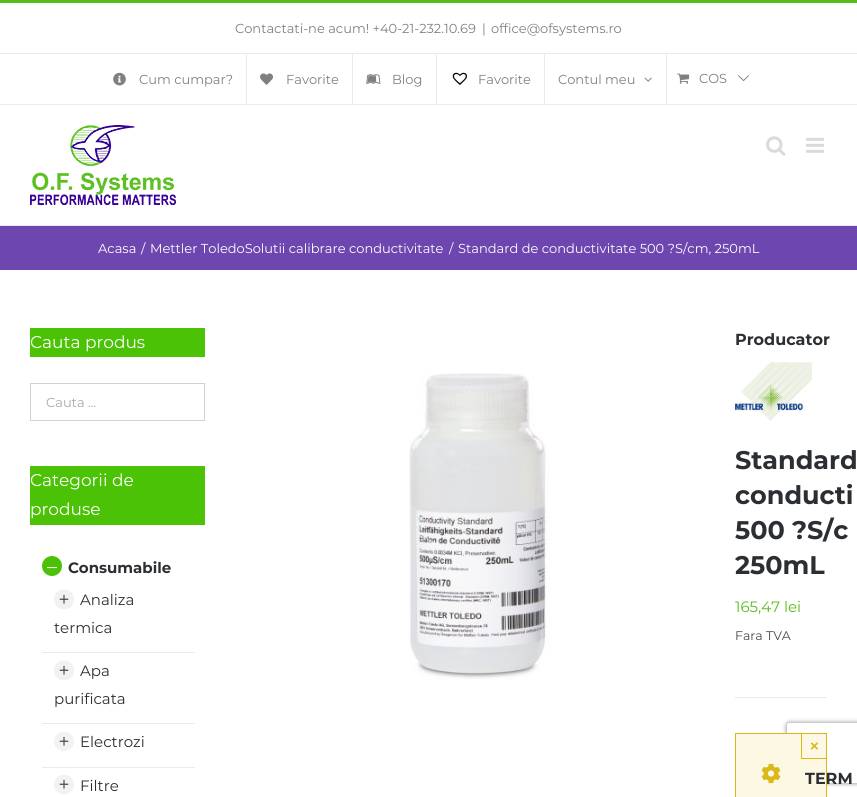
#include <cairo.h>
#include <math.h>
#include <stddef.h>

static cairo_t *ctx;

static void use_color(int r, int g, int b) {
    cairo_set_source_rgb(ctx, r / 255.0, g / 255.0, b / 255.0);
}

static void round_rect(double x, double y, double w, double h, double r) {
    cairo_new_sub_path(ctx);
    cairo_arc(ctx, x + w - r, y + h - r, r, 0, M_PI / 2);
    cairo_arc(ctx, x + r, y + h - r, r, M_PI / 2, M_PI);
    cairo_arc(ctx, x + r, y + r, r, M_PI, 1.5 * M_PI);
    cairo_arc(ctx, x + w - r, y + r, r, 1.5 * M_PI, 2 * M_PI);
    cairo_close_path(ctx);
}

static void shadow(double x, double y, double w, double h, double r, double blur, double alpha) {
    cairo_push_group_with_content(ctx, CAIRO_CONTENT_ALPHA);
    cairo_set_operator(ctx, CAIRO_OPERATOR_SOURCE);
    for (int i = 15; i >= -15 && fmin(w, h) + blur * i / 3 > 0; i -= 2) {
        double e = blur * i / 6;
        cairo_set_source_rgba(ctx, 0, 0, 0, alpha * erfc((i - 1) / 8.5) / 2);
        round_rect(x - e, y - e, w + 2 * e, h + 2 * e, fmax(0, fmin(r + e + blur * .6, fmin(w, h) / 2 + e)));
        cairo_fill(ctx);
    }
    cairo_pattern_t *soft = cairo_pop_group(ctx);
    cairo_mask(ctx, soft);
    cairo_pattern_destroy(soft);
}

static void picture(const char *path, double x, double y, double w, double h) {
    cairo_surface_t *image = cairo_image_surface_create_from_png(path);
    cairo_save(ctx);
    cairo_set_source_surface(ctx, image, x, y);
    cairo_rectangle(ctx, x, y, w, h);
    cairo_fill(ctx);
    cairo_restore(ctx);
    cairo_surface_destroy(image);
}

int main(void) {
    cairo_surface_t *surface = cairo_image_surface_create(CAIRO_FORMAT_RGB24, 857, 797);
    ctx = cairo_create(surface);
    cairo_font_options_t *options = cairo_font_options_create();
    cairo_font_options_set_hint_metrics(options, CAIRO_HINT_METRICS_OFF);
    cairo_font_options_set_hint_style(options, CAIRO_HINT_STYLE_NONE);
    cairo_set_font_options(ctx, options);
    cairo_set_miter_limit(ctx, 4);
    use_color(255, 255, 255);
    cairo_paint(ctx);
    use_color(87, 191, 26);
    cairo_rectangle(ctx, 0, 0, 857, 3);
    cairo_fill(ctx);
    use_color(234, 234, 234);
    cairo_rectangle(ctx, 0, 104, 857, 1);
    cairo_fill(ctx);
    cairo_rectangle(ctx, 0, 53, 857, 1);
    cairo_fill(ctx);
    cairo_select_font_face(ctx, "Montserrat", CAIRO_FONT_SLANT_NORMAL, CAIRO_FONT_WEIGHT_NORMAL);
    cairo_set_font_size(ctx, 13);
    use_color(128, 128, 128);
    cairo_move_to(ctx, 235, 33);
    cairo_show_text(ctx, "Contactati-ne acum! +40-21-232.10.69");
    cairo_move_to(ctx, 482, 33);
    cairo_show_text(ctx, "|");
    cairo_move_to(ctx, 491, 33);
    cairo_show_text(ctx, "office@ofsystems.ro");
    picture("img1.png", 113, 72, 13, 14);
    cairo_move_to(ctx, 139, 84);
    cairo_show_text(ctx, "Cum cumpar?");
    use_color(234, 234, 234);
    cairo_rectangle(ctx, 246, 54, 1, 50);
    cairo_fill(ctx);
    picture("img2.png", 260, 73, 13, 12);
    use_color(128, 128, 128);
    cairo_move_to(ctx, 286, 84);
    cairo_show_text(ctx, "Favorite");
    use_color(234, 234, 234);
    cairo_rectangle(ctx, 352, 54, 1, 50);
    cairo_fill(ctx);
    picture("img3.png", 366, 74, 15, 10);
    use_color(128, 128, 128);
    cairo_move_to(ctx, 392, 84);
    cairo_show_text(ctx, "Blog");
    use_color(234, 234, 234);
    cairo_rectangle(ctx, 436, 54, 1, 50);
    cairo_fill(ctx);
    picture("img4.png", 452, 72, 15, 13);
    use_color(128, 128, 128);
    cairo_move_to(ctx, 478, 84);
    cairo_show_text(ctx, "Favorite");
    use_color(234, 234, 234);
    cairo_rectangle(ctx, 544, 54, 1, 50);
    cairo_fill(ctx);
    use_color(128, 128, 128);
    cairo_move_to(ctx, 558, 84);
    cairo_show_text(ctx, "Contul meu");
    picture("img5.png", 644, 77, 8, 5);
    use_color(234, 234, 234);
    cairo_rectangle(ctx, 666, 54, 1, 50);
    cairo_fill(ctx);
    picture("img6.png", 677, 73, 13, 11);
    use_color(128, 128, 128);
    cairo_move_to(ctx, 699, 83);
    cairo_show_text(ctx, "COS");
    picture("img7.png", 738, 75, 11, 6);
    use_color(234, 234, 234);
    cairo_rectangle(ctx, 0, 225, 857, 1);
    cairo_fill(ctx);
    picture("img8.png", 30, 125, 146, 80);
    picture("img9.png", 766, 136, 20, 20);
    picture("img10.png", 806, 137, 18, 16);
    use_color(109, 71, 175);
    cairo_rectangle(ctx, 0, 226, 857, 44);
    cairo_fill(ctx);
    use_color(255, 255, 255);
    cairo_move_to(ctx, 98, 253);
    cairo_show_text(ctx, "Acasa");
    cairo_move_to(ctx, 141, 253);
    cairo_show_text(ctx, "/");
    cairo_move_to(ctx, 150, 253);
    cairo_show_text(ctx, "Mettler ToledoSolutii calibrare conductivitate");
    cairo_move_to(ctx, 449, 253);
    cairo_show_text(ctx, "/");
    cairo_move_to(ctx, 458, 253);
    cairo_show_text(ctx, "Standard de conductivitate 500 ?S/cm, 250mL");
    use_color(75, 194, 5);
    cairo_rectangle(ctx, 30, 328, 175, 29);
    cairo_fill(ctx);
    cairo_set_font_size(ctx, 17);
    use_color(255, 255, 255);
    cairo_move_to(ctx, 30, 348);
    cairo_show_text(ctx, "Cauta produs");
    cairo_rectangle(ctx, 30.5, 383.5, 174, 37);
    use_color(210, 210, 210);
    cairo_set_line_width(ctx, 1);
    cairo_stroke(ctx);
    cairo_set_font_size(ctx, 13);
    use_color(170, 169, 169);
    cairo_move_to(ctx, 46, 407);
    cairo_show_text(ctx, "Cauta ...");
    use_color(75, 194, 5);
    cairo_rectangle(ctx, 30, 466, 175, 59);
    cairo_fill(ctx);
    cairo_set_font_size(ctx, 17);
    use_color(255, 255, 255);
    cairo_move_to(ctx, 30, 486);
    cairo_show_text(ctx, "Categorii de");
    cairo_move_to(ctx, 30, 515);
    cairo_show_text(ctx, "produse");
    use_color(75, 194, 5);
    cairo_new_path(ctx);
    cairo_arc(ctx, 52, 566, 10, 0, 2 * M_PI);
    cairo_fill(ctx);
    cairo_set_font_size(ctx, 20);
    use_color(255, 255, 255);
    cairo_move_to(ctx, 47, 573);
    cairo_show_text(ctx, "–");
    cairo_select_font_face(ctx, "Montserrat", CAIRO_FONT_SLANT_NORMAL, CAIRO_FONT_WEIGHT_BOLD);
    cairo_set_font_size(ctx, 15);
    use_color(43, 46, 50);
    cairo_move_to(ctx, 68, 573);
    cairo_show_text(ctx, "Consumabile");
    use_color(234, 234, 234);
    cairo_rectangle(ctx, 42, 652, 153, 1);
    cairo_fill(ctx);
    use_color(242, 242, 242);
    cairo_new_path(ctx);
    cairo_move_to(ctx, 54, 599.5);
    cairo_curve_to(ctx, 54, 586, 74, 586, 74, 599.5);
    cairo_curve_to(ctx, 74, 612.5, 54, 612.5, 54, 599.5);
    cairo_close_path(ctx);
    cairo_fill(ctx);
    cairo_select_font_face(ctx, "Montserrat", CAIRO_FONT_SLANT_NORMAL, CAIRO_FONT_WEIGHT_NORMAL);
    cairo_set_font_size(ctx, 20);
    use_color(73, 73, 73);
    cairo_save(ctx);
    cairo_translate(ctx, 71, 605);
    cairo_rotate(ctx, -90 * M_PI / 180);
    cairo_move_to(ctx, 0, 0);
    cairo_show_text(ctx, "+");
    cairo_restore(ctx);
    cairo_set_font_size(ctx, 15);
    use_color(43, 46, 50);
    cairo_move_to(ctx, 80, 605);
    cairo_show_text(ctx, "Analiza");
    cairo_move_to(ctx, 54, 633);
    cairo_show_text(ctx, "termica");
    use_color(234, 234, 234);
    cairo_rectangle(ctx, 42, 723, 153, 1);
    cairo_fill(ctx);
    use_color(242, 242, 242);
    cairo_new_path(ctx);
    cairo_move_to(ctx, 54, 670.5);
    cairo_curve_to(ctx, 54, 657, 74, 657, 74, 670.5);
    cairo_curve_to(ctx, 74, 683.5, 54, 683.5, 54, 670.5);
    cairo_close_path(ctx);
    cairo_fill(ctx);
    cairo_set_font_size(ctx, 20);
    use_color(73, 73, 73);
    cairo_save(ctx);
    cairo_translate(ctx, 71, 676);
    cairo_rotate(ctx, -90 * M_PI / 180);
    cairo_move_to(ctx, 0, 0);
    cairo_show_text(ctx, "+");
    cairo_restore(ctx);
    cairo_set_font_size(ctx, 15);
    use_color(43, 46, 50);
    cairo_move_to(ctx, 80, 676);
    cairo_show_text(ctx, "Apa");
    cairo_move_to(ctx, 54, 704);
    cairo_show_text(ctx, "purificata");
    use_color(234, 234, 234);
    cairo_rectangle(ctx, 42, 767, 153, 1);
    cairo_fill(ctx);
    use_color(242, 242, 242);
    cairo_new_path(ctx);
    cairo_move_to(ctx, 54, 741.5);
    cairo_curve_to(ctx, 54, 728.5, 74, 728.5, 74, 741.5);
    cairo_curve_to(ctx, 74, 754.5, 54, 754.5, 54, 741.5);
    cairo_close_path(ctx);
    cairo_fill(ctx);
    cairo_set_font_size(ctx, 20);
    use_color(73, 73, 73);
    cairo_save(ctx);
    cairo_translate(ctx, 71, 747);
    cairo_rotate(ctx, -90 * M_PI / 180);
    cairo_move_to(ctx, 0, 0);
    cairo_show_text(ctx, "+");
    cairo_restore(ctx);
    cairo_set_font_size(ctx, 15);
    use_color(43, 46, 50);
    cairo_move_to(ctx, 80, 747);
    cairo_show_text(ctx, "Electrozi");
    use_color(242, 242, 242);
    cairo_new_path(ctx);
    cairo_move_to(ctx, 54, 784.5);
    cairo_curve_to(ctx, 54, 771.5, 74, 771.5, 74, 784.5);
    cairo_curve_to(ctx, 74, 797.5, 54, 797.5, 54, 784.5);
    cairo_close_path(ctx);
    cairo_fill(ctx);
    cairo_set_font_size(ctx, 20);
    use_color(73, 73, 73);
    cairo_save(ctx);
    cairo_translate(ctx, 71, 790);
    cairo_rotate(ctx, -90 * M_PI / 180);
    cairo_move_to(ctx, 0, 0);
    cairo_show_text(ctx, "+");
    cairo_restore(ctx);
    cairo_set_font_size(ctx, 15);
    use_color(43, 46, 50);
    cairo_move_to(ctx, 80, 791);
    cairo_show_text(ctx, "Filtre");
    picture("img11.png", 409, 373, 141, 307);
    cairo_select_font_face(ctx, "Montserrat", CAIRO_FONT_SLANT_NORMAL, CAIRO_FONT_WEIGHT_BOLD);
    cairo_set_font_size(ctx, 16);
    cairo_move_to(ctx, 735, 345);
    cairo_show_text(ctx, "Producator");
    picture("img12.png", 735, 362, 77, 59);
    cairo_set_font_size(ctx, 25.5);
    cairo_move_to(ctx, 735, 469);
    cairo_show_text(ctx, "Standard");
    cairo_move_to(ctx, 735, 504);
    cairo_show_text(ctx, "conducti");
    cairo_move_to(ctx, 735, 539);
    cairo_show_text(ctx, "500 ?S/c");
    cairo_move_to(ctx, 735, 574);
    cairo_show_text(ctx, "250mL");
    cairo_select_font_face(ctx, "Montserrat", CAIRO_FONT_SLANT_NORMAL, CAIRO_FONT_WEIGHT_NORMAL);
    cairo_set_font_size(ctx, 15);
    use_color(87, 191, 26);
    cairo_move_to(ctx, 735, 612);
    cairo_show_text(ctx, "165,47 lei");
    cairo_set_font_size(ctx, 12.5);
    use_color(73, 73, 73);
    cairo_move_to(ctx, 735, 640);
    cairo_show_text(ctx, "Fara TVA");
    use_color(234, 234, 234);
    cairo_rectangle(ctx, 735, 697, 92, 1);
    cairo_fill(ctx);
    cairo_save(ctx);
    cairo_set_fill_rule(ctx, CAIRO_FILL_RULE_EVEN_ODD);
    cairo_new_path(ctx);
    cairo_move_to(ctx, 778, 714);
    cairo_line_to(ctx, 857, 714);
    cairo_line_to(ctx, 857, 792);
    cairo_line_to(ctx, 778, 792);
    cairo_close_path(ctx);
    cairo_move_to(ctx, 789, 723);
    cairo_line_to(ctx, 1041, 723);
    cairo_curve_to(ctx, 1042, 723, 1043, 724, 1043, 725);
    cairo_line_to(ctx, 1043, 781);
    cairo_curve_to(ctx, 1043, 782, 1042, 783, 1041, 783);
    cairo_line_to(ctx, 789, 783);
    cairo_curve_to(ctx, 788, 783, 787, 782, 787, 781);
    cairo_line_to(ctx, 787, 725);
    cairo_curve_to(ctx, 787, 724, 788, 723, 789, 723);
    cairo_close_path(ctx);
    cairo_clip(ctx);
    use_color(128, 128, 128);
    shadow(787, 723, 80, 60, 2, 2.5, 1);
    cairo_restore(ctx);
    use_color(252, 248, 227);
    cairo_rectangle(ctx, 735.5, 733.5, 91, 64);
    cairo_fill_preserve(ctx);
    use_color(217, 185, 23);
    cairo_stroke(ctx);
    cairo_rectangle(ctx, 801, 758, 26, 1);
    cairo_fill(ctx);
    cairo_rectangle(ctx, 801, 733, 1, 26);
    cairo_fill(ctx);
    cairo_select_font_face(ctx, "Liberation Sans", CAIRO_FONT_SLANT_NORMAL, CAIRO_FONT_WEIGHT_BOLD);
    cairo_set_font_size(ctx, 15);
    cairo_move_to(ctx, 810, 751);
    cairo_show_text(ctx, "×");
    picture("img13.png", 761, 763, 20, 21);
    cairo_select_font_face(ctx, "Montserrat", CAIRO_FONT_SLANT_NORMAL, CAIRO_FONT_WEIGHT_BOLD);
    cairo_set_font_size(ctx, 16);
    use_color(43, 46, 50);
    cairo_move_to(ctx, 805, 784);
    cairo_show_text(ctx, "TERM");
    cairo_surface_write_to_png(surface, "result.png");
    cairo_font_options_destroy(options);
    cairo_destroy(ctx);
    cairo_surface_destroy(surface);
    return 0;
}
